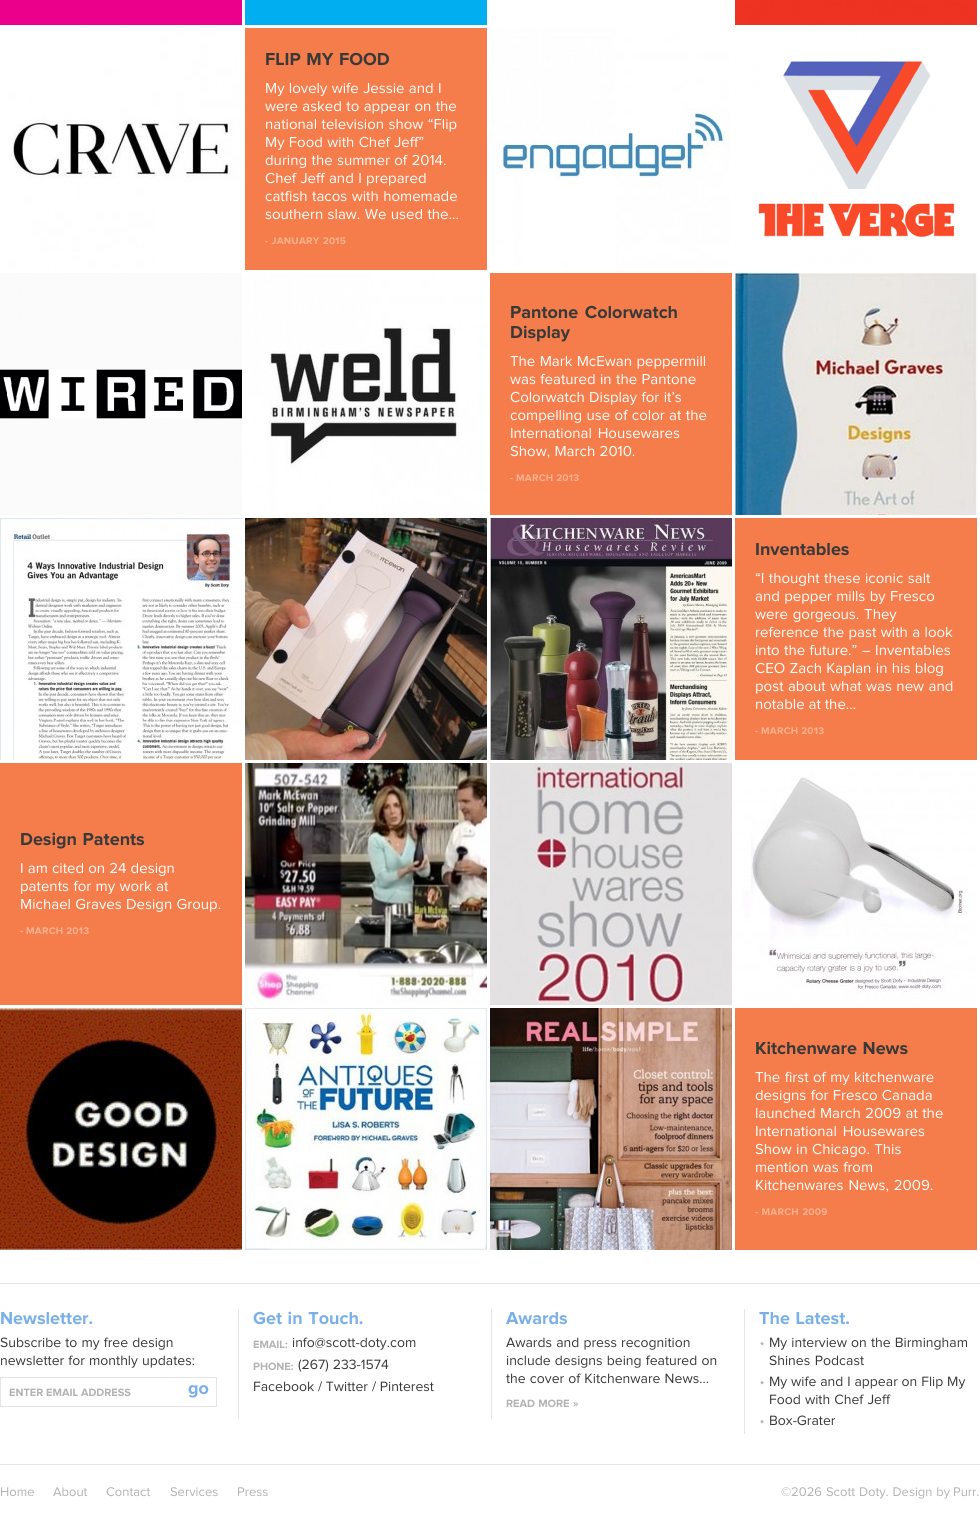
#include <cairo.h>
#include <math.h>
#include <stddef.h>

static cairo_t *ctx;

static void use_color(int r, int g, int b) {
    cairo_set_source_rgb(ctx, r / 255.0, g / 255.0, b / 255.0);
}

static void spaced_text(double x, double y, const char *s, double letter, double word) {
    cairo_move_to(ctx, x, y);
    while (*s) {
        char ch[5] = {0};
        int n = 0;
        do ch[n++] = *s++; while ((*s & 0xC0) == 0x80);
        cairo_show_text(ctx, ch);
        cairo_rel_move_to(ctx, letter + word * (*ch == ' '), 0);
    }
}

static void picture(const char *path, double x, double y, double w, double h) {
    cairo_surface_t *image = cairo_image_surface_create_from_png(path);
    cairo_save(ctx);
    cairo_set_source_surface(ctx, image, x, y);
    cairo_rectangle(ctx, x, y, w, h);
    cairo_fill(ctx);
    cairo_restore(ctx);
    cairo_surface_destroy(image);
}

int main(void) {
    cairo_surface_t *surface = cairo_image_surface_create(CAIRO_FORMAT_RGB24, 980, 1520);
    ctx = cairo_create(surface);
    cairo_font_options_t *options = cairo_font_options_create();
    cairo_font_options_set_hint_metrics(options, CAIRO_HINT_METRICS_OFF);
    cairo_font_options_set_hint_style(options, CAIRO_HINT_STYLE_NONE);
    cairo_set_font_options(ctx, options);
    cairo_set_miter_limit(ctx, 4);
    use_color(255, 255, 255);
    cairo_paint(ctx);
    use_color(235, 0, 139);
    cairo_rectangle(ctx, 0, 0, 242, 25);
    cairo_fill(ctx);
    use_color(1, 174, 240);
    cairo_rectangle(ctx, 245, 0, 242, 25);
    cairo_fill(ctx);
    picture("img1.png", 735, 0, 242, 25);
    picture("img2.png", 0, 28, 242, 242);
    use_color(245, 125, 75);
    cairo_rectangle(ctx, 245, 28, 242, 242);
    cairo_fill(ctx);
    cairo_select_font_face(ctx, "Proxima Nova", CAIRO_FONT_SLANT_NORMAL, CAIRO_FONT_WEIGHT_BOLD);
    cairo_set_font_size(ctx, 18);
    use_color(57, 57, 57);
    spaced_text(265, 65, "FLIP MY FOOD", 0, 1);
    cairo_select_font_face(ctx, "Proxima Nova", CAIRO_FONT_SLANT_NORMAL, CAIRO_FONT_WEIGHT_NORMAL);
    cairo_set_font_size(ctx, 15);
    use_color(255, 255, 255);
    spaced_text(265, 93, "My lovely wife Jessie and I", 0, 0.5);
    spaced_text(265, 111, "were asked to appear on the", 0, 0.5);
    spaced_text(265, 129, "national television show “Flip", 0, 0.5);
    spaced_text(265, 147, "My Food with Chef Jeff”", 0, 0.5);
    spaced_text(265, 165, "during the summer of 2014.", 0, 0.5);
    spaced_text(265, 183, "Chef Jeff and I prepared", 0, 0.5);
    spaced_text(265, 201, "catfish tacos with homemade", 0, 0.5);
    spaced_text(265, 219, "southern slaw. We used the…", 0, 0.5);
    cairo_select_font_face(ctx, "Proxima Nova", CAIRO_FONT_SLANT_NORMAL, CAIRO_FONT_WEIGHT_BOLD);
    cairo_set_font_size(ctx, 10);
    use_color(255, 177, 144);
    spaced_text(265, 244, "- JANUARY 2015", 0.25, 0.5);
    picture("img3.png", 490, 28, 242, 242);
    picture("img4.png", 735, 28, 242, 242);
    picture("img5.png", 0, 273, 242, 242);
    picture("img6.png", 245, 273, 242, 242);
    use_color(245, 125, 75);
    cairo_rectangle(ctx, 490, 273, 242, 242);
    cairo_fill(ctx);
    cairo_set_font_size(ctx, 18);
    use_color(57, 57, 57);
    spaced_text(510, 318, "Pantone Colorwatch", 0, 2);
    cairo_move_to(ctx, 510, 338);
    cairo_show_text(ctx, "Display");
    cairo_select_font_face(ctx, "Proxima Nova", CAIRO_FONT_SLANT_NORMAL, CAIRO_FONT_WEIGHT_NORMAL);
    cairo_set_font_size(ctx, 15);
    use_color(255, 255, 255);
    spaced_text(510, 366, "The Mark McEwan peppermill", 0, 0.5);
    spaced_text(510, 384, "was featured in the Pantone", 0, 0.5);
    spaced_text(510, 402, "Colorwatch Display for it’s", 0, 0.5);
    spaced_text(510, 420, "compelling use of color at the", 0, 0.5);
    spaced_text(510, 438, "International Housewares", 0, 2);
    spaced_text(510, 456, "Show, March 2010.", 0, 0.5);
    cairo_select_font_face(ctx, "Proxima Nova", CAIRO_FONT_SLANT_NORMAL, CAIRO_FONT_WEIGHT_BOLD);
    cairo_set_font_size(ctx, 10);
    use_color(255, 177, 144);
    spaced_text(510, 481, "- MARCH 2013", 0.25, 0);
    picture("img7.png", 735, 273, 242, 242);
    picture("img8.png", 0, 518, 242, 242);
    picture("img9.png", 245, 518, 242, 242);
    picture("img10.png", 490, 518, 242, 242);
    use_color(245, 125, 75);
    cairo_rectangle(ctx, 735, 518, 242, 242);
    cairo_fill(ctx);
    cairo_set_font_size(ctx, 18);
    use_color(57, 57, 57);
    cairo_move_to(ctx, 755, 555);
    cairo_show_text(ctx, "Inventables");
    cairo_select_font_face(ctx, "Proxima Nova", CAIRO_FONT_SLANT_NORMAL, CAIRO_FONT_WEIGHT_NORMAL);
    cairo_set_font_size(ctx, 15);
    use_color(255, 255, 255);
    spaced_text(755, 583, "“I thought these iconic salt", 0, 0.5);
    spaced_text(755, 601, "and pepper mills by Fresco", 0, 0.5);
    spaced_text(755, 619, "were gorgeous. They", 0, 1);
    spaced_text(755, 637, "reference the past with a look", 0, 0.5);
    spaced_text(755, 655, "into the future.” – Inventables", 0, 0.5);
    spaced_text(755, 673, "CEO Zach Kaplan in his blog", 0, 0.5);
    spaced_text(755, 691, "post about what was new and", 0, 0.5);
    cairo_move_to(ctx, 755, 709);
    cairo_show_text(ctx, "notable at the…");
    cairo_select_font_face(ctx, "Proxima Nova", CAIRO_FONT_SLANT_NORMAL, CAIRO_FONT_WEIGHT_BOLD);
    cairo_set_font_size(ctx, 10);
    use_color(255, 177, 144);
    spaced_text(755, 734, "- MARCH 2013", 0.25, 0);
    use_color(245, 125, 75);
    cairo_rectangle(ctx, 0, 763, 242, 242);
    cairo_fill(ctx);
    cairo_set_font_size(ctx, 18);
    use_color(57, 57, 57);
    spaced_text(20, 845, "Design Patents", 0, 1);
    cairo_select_font_face(ctx, "Proxima Nova", CAIRO_FONT_SLANT_NORMAL, CAIRO_FONT_WEIGHT_NORMAL);
    cairo_set_font_size(ctx, 15);
    use_color(255, 255, 255);
    spaced_text(20, 873, "I am cited on 24 design", 0, 0.25);
    spaced_text(20, 891, "patents for my work at", 0, 0.5);
    spaced_text(20, 909, "Michael Graves Design Group.", 0, 0.5);
    cairo_select_font_face(ctx, "Proxima Nova", CAIRO_FONT_SLANT_NORMAL, CAIRO_FONT_WEIGHT_BOLD);
    cairo_set_font_size(ctx, 10);
    use_color(255, 177, 144);
    spaced_text(20, 934, "- MARCH 2013", 0.25, 0);
    picture("img11.png", 245, 763, 242, 242);
    picture("img12.png", 490, 763, 242, 242);
    picture("img13.png", 735, 763, 242, 242);
    picture("img14.png", 0, 1008, 242, 242);
    picture("img15.png", 245, 1008, 242, 242);
    picture("img16.png", 490, 1008, 242, 242);
    use_color(245, 125, 75);
    cairo_rectangle(ctx, 735, 1008, 242, 242);
    cairo_fill(ctx);
    cairo_set_font_size(ctx, 18);
    use_color(57, 57, 57);
    spaced_text(755, 1054, "Kitchenware News", 0, 1);
    cairo_select_font_face(ctx, "Proxima Nova", CAIRO_FONT_SLANT_NORMAL, CAIRO_FONT_WEIGHT_NORMAL);
    cairo_set_font_size(ctx, 15);
    use_color(255, 255, 255);
    spaced_text(755, 1082, "The first of my kitchenware", 0, 0.5);
    spaced_text(755, 1100, "designs for Fresco Canada", 0, 0.5);
    spaced_text(755, 1118, "launched March 2009 at the", 0, 0.5);
    spaced_text(755, 1136, "International Housewares", 0, 2);
    spaced_text(755, 1154, "Show in Chicago. This", 0, 0.5);
    spaced_text(755, 1172, "mention was from", 0, 0.5);
    spaced_text(755, 1190, "Kitchenwares News, 2009.", 0, 1);
    cairo_select_font_face(ctx, "Proxima Nova", CAIRO_FONT_SLANT_NORMAL, CAIRO_FONT_WEIGHT_BOLD);
    cairo_set_font_size(ctx, 10);
    use_color(255, 177, 144);
    spaced_text(755, 1215, "- MARCH 2009", 0.25, 0.5);
    use_color(230, 228, 228);
    cairo_rectangle(ctx, 0, 1283, 980, 1);
    cairo_fill(ctx);
    cairo_set_font_size(ctx, 18);
    use_color(122, 176, 233);
    cairo_move_to(ctx, 0, 1324);
    cairo_show_text(ctx, "Newsletter.");
    cairo_select_font_face(ctx, "Proxima Nova", CAIRO_FONT_SLANT_NORMAL, CAIRO_FONT_WEIGHT_NORMAL);
    cairo_set_font_size(ctx, 14);
    use_color(57, 57, 57);
    spaced_text(0, 1347, "Subscribe to my free design", 0, 0.5);
    spaced_text(0, 1365, "newsletter for monthly updates:", 0, 0.5);
    cairo_rectangle(ctx, 0.5, 1377.5, 216, 29);
    use_color(230, 228, 228);
    cairo_set_line_width(ctx, 1);
    cairo_stroke(ctx);
    cairo_select_font_face(ctx, "Proxima Nova", CAIRO_FONT_SLANT_NORMAL, CAIRO_FONT_WEIGHT_BOLD);
    cairo_set_font_size(ctx, 11);
    use_color(179, 178, 180);
    cairo_move_to(ctx, 9, 1396);
    cairo_show_text(ctx, "ENTER EMAIL ADDRESS");
    cairo_set_font_size(ctx, 18);
    use_color(122, 176, 233);
    cairo_move_to(ctx, 188, 1394);
    cairo_show_text(ctx, "go");
    use_color(230, 228, 228);
    cairo_rectangle(ctx, 238, 1309, 1, 110);
    cairo_fill(ctx);
    use_color(122, 176, 233);
    spaced_text(253, 1324, "Get in Touch.", 0, 1);
    cairo_set_font_size(ctx, 11);
    use_color(179, 178, 180);
    cairo_move_to(ctx, 253, 1348);
    cairo_show_text(ctx, "EMAIL:");
    cairo_select_font_face(ctx, "Proxima Nova", CAIRO_FONT_SLANT_NORMAL, CAIRO_FONT_WEIGHT_NORMAL);
    cairo_set_font_size(ctx, 14);
    use_color(57, 57, 57);
    cairo_move_to(ctx, 292, 1347);
    cairo_show_text(ctx, "info@scott-doty.com");
    cairo_select_font_face(ctx, "Proxima Nova", CAIRO_FONT_SLANT_NORMAL, CAIRO_FONT_WEIGHT_BOLD);
    cairo_set_font_size(ctx, 11);
    use_color(179, 178, 180);
    cairo_move_to(ctx, 253, 1370);
    cairo_show_text(ctx, "PHONE:");
    cairo_select_font_face(ctx, "Proxima Nova", CAIRO_FONT_SLANT_NORMAL, CAIRO_FONT_WEIGHT_NORMAL);
    cairo_set_font_size(ctx, 14);
    use_color(57, 57, 57);
    spaced_text(298, 1369, "(267) 233-1574", 0, 0.5);
    cairo_move_to(ctx, 253, 1391);
    cairo_show_text(ctx, "Facebook");
    cairo_move_to(ctx, 318, 1391);
    cairo_show_text(ctx, "/ Twitter");
    cairo_move_to(ctx, 372, 1391);
    cairo_show_text(ctx, "/ Pinterest");
    use_color(230, 228, 228);
    cairo_rectangle(ctx, 491, 1309, 1, 110);
    cairo_fill(ctx);
    cairo_select_font_face(ctx, "Proxima Nova", CAIRO_FONT_SLANT_NORMAL, CAIRO_FONT_WEIGHT_BOLD);
    cairo_set_font_size(ctx, 18);
    use_color(122, 176, 233);
    cairo_move_to(ctx, 506, 1324);
    cairo_show_text(ctx, "Awards");
    cairo_select_font_face(ctx, "Proxima Nova", CAIRO_FONT_SLANT_NORMAL, CAIRO_FONT_WEIGHT_NORMAL);
    cairo_set_font_size(ctx, 14);
    use_color(57, 57, 57);
    spaced_text(506, 1347, "Awards and press recognition", 0, 0.5);
    spaced_text(506, 1365, "include designs being featured on", 0, 0.5);
    spaced_text(506, 1383, "the cover of Kitchenware News...", 0, 0.5);
    cairo_select_font_face(ctx, "Proxima Nova", CAIRO_FONT_SLANT_NORMAL, CAIRO_FONT_WEIGHT_BOLD);
    cairo_set_font_size(ctx, 11);
    use_color(179, 178, 180);
    spaced_text(506, 1407, "READ MORE »", 0, 0.5);
    use_color(230, 228, 228);
    cairo_rectangle(ctx, 744, 1309, 1, 125);
    cairo_fill(ctx);
    cairo_set_font_size(ctx, 18);
    use_color(122, 176, 233);
    spaced_text(759, 1324, "The Latest.", 0, 1);
    picture("img17.png", 760, 1342, 4, 4);
    cairo_select_font_face(ctx, "Proxima Nova", CAIRO_FONT_SLANT_NORMAL, CAIRO_FONT_WEIGHT_NORMAL);
    cairo_set_font_size(ctx, 14);
    use_color(57, 57, 57);
    spaced_text(769, 1347, "My interview on the Birmingham", 0, 0.5);
    spaced_text(769, 1365, "Shines Podcast", 0, 1);
    picture("img17.png", 760, 1381, 4, 4);
    spaced_text(769, 1386, "My wife and I appear on Flip My", 0, 0.25);
    spaced_text(769, 1404, "Food with Chef Jeff", 0, 0.5);
    picture("img17.png", 760, 1420, 4, 4);
    cairo_move_to(ctx, 769, 1425);
    cairo_show_text(ctx, "Box-Grater");
    use_color(230, 228, 228);
    cairo_rectangle(ctx, 0, 1464, 980, 1);
    cairo_fill(ctx);
    cairo_set_font_size(ctx, 13);
    use_color(179, 178, 180);
    cairo_move_to(ctx, 0, 1496);
    cairo_show_text(ctx, "Home");
    cairo_move_to(ctx, 53, 1496);
    cairo_show_text(ctx, "About");
    cairo_move_to(ctx, 106, 1496);
    cairo_show_text(ctx, "Contact");
    cairo_move_to(ctx, 170, 1496);
    cairo_show_text(ctx, "Services");
    cairo_move_to(ctx, 237, 1496);
    cairo_show_text(ctx, "Press");
    spaced_text(781, 1496, "©2026 Scott Doty. Design by", 0, 0.5);
    cairo_move_to(ctx, 953, 1496);
    cairo_show_text(ctx, "Purr.");
    cairo_surface_write_to_png(surface, "result.png");
    cairo_font_options_destroy(options);
    cairo_destroy(ctx);
    cairo_surface_destroy(surface);
    return 0;
}
